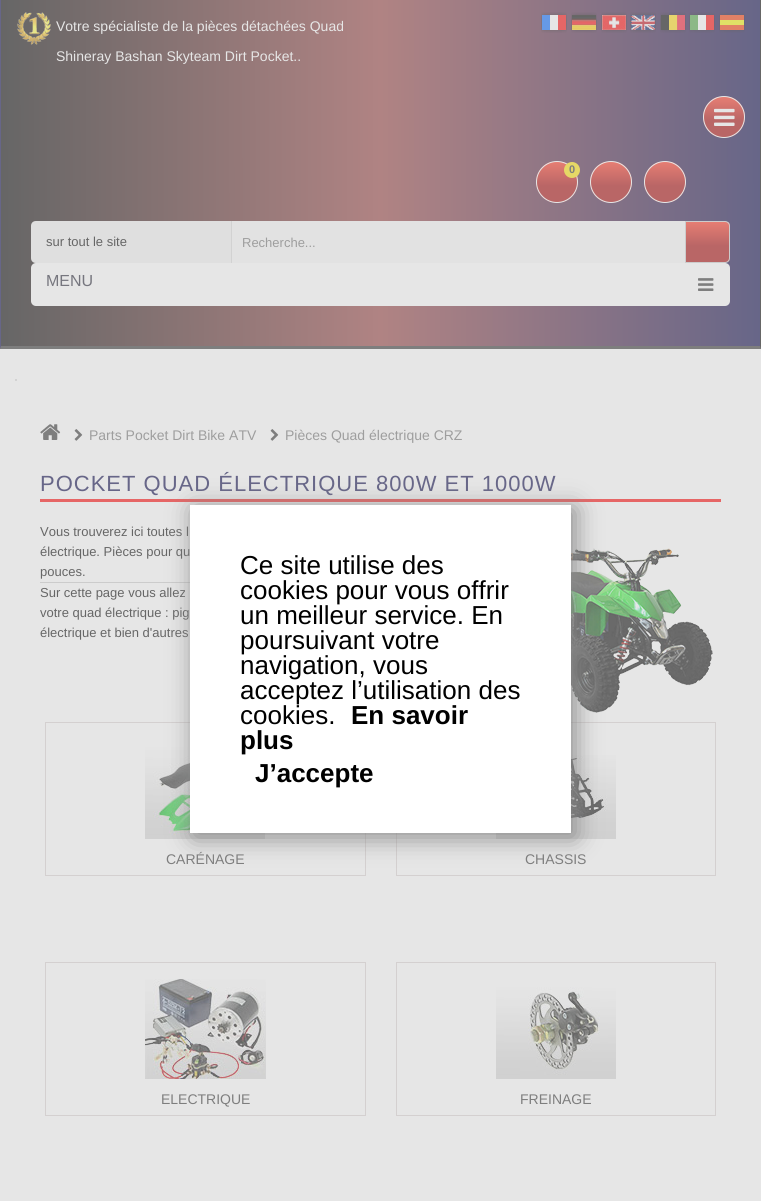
#include <cairo.h>
#include <math.h>
#include <stddef.h>

static cairo_t *ctx;

static void use_color(int r, int g, int b) {
    cairo_set_source_rgb(ctx, r / 255.0, g / 255.0, b / 255.0);
}

static void spaced_text(double x, double y, const char *s, double letter, double word) {
    cairo_move_to(ctx, x, y);
    while (*s) {
        char ch[5] = {0};
        int n = 0;
        do ch[n++] = *s++; while ((*s & 0xC0) == 0x80);
        cairo_show_text(ctx, ch);
        cairo_rel_move_to(ctx, letter + word * (*ch == ' '), 0);
    }
}

static void round_rect(double x, double y, double w, double h, double r) {
    cairo_new_sub_path(ctx);
    cairo_arc(ctx, x + w - r, y + h - r, r, 0, M_PI / 2);
    cairo_arc(ctx, x + r, y + h - r, r, M_PI / 2, M_PI);
    cairo_arc(ctx, x + r, y + r, r, M_PI, 1.5 * M_PI);
    cairo_arc(ctx, x + w - r, y + r, r, 1.5 * M_PI, 2 * M_PI);
    cairo_close_path(ctx);
}

static void shadow(double x, double y, double w, double h, double r, double blur, double alpha) {
    cairo_push_group_with_content(ctx, CAIRO_CONTENT_ALPHA);
    cairo_set_operator(ctx, CAIRO_OPERATOR_SOURCE);
    for (int i = 15; i >= -15 && fmin(w, h) + blur * i / 3 > 0; i -= 2) {
        double e = blur * i / 6;
        cairo_set_source_rgba(ctx, 0, 0, 0, alpha * erfc((i - 1) / 8.5) / 2);
        round_rect(x - e, y - e, w + 2 * e, h + 2 * e, fmax(0, fmin(r + e + blur * .6, fmin(w, h) / 2 + e)));
        cairo_fill(ctx);
    }
    cairo_pattern_t *soft = cairo_pop_group(ctx);
    cairo_mask(ctx, soft);
    cairo_pattern_destroy(soft);
}

static void picture(const char *path, double x, double y, double w, double h) {
    cairo_surface_t *image = cairo_image_surface_create_from_png(path);
    cairo_save(ctx);
    cairo_set_source_surface(ctx, image, x, y);
    cairo_rectangle(ctx, x, y, w, h);
    cairo_fill(ctx);
    cairo_restore(ctx);
    cairo_surface_destroy(image);
}

int main(void) {
    cairo_surface_t *surface = cairo_image_surface_create(CAIRO_FORMAT_RGB24, 761, 1201);
    ctx = cairo_create(surface);
    cairo_font_options_t *options = cairo_font_options_create();
    cairo_font_options_set_hint_metrics(options, CAIRO_HINT_METRICS_OFF);
    cairo_font_options_set_hint_style(options, CAIRO_HINT_STYLE_NONE);
    cairo_set_font_options(ctx, options);
    cairo_set_miter_limit(ctx, 4);
    cairo_pattern_t *gradient;
    use_color(230, 230, 230);
    cairo_paint(ctx);
    gradient = cairo_pattern_create_linear(-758, 174, 1, 173);
    cairo_pattern_add_color_stop_rgba(gradient, 0, 0.4, 0.4, 0.4, 1);
    cairo_pattern_add_color_stop_rgba(gradient, 0.5, 0.69, 0.514, 0.514, 1);
    cairo_pattern_add_color_stop_rgba(gradient, 1, 0.404, 0.4, 0.533, 1);
    cairo_set_source(ctx, gradient);
    cairo_pattern_destroy(gradient);
    cairo_rectangle(ctx, 0, 0, 1, 349);
    cairo_fill(ctx);
    gradient = cairo_pattern_create_linear(1, 174, 760, 173);
    cairo_pattern_add_color_stop_rgba(gradient, 0, 0.4, 0.4, 0.4, 1);
    cairo_pattern_add_color_stop_rgba(gradient, 0.5, 0.69, 0.514, 0.514, 1);
    cairo_pattern_add_color_stop_rgba(gradient, 1, 0.404, 0.4, 0.533, 1);
    cairo_set_source(ctx, gradient);
    cairo_pattern_destroy(gradient);
    cairo_rectangle(ctx, 1, 0, 759, 346);
    cairo_fill(ctx);
    gradient = cairo_pattern_create_linear(760, 174, 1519, 173);
    cairo_pattern_add_color_stop_rgba(gradient, 0, 0.4, 0.4, 0.4, 1);
    cairo_pattern_add_color_stop_rgba(gradient, 0.5, 0.69, 0.514, 0.514, 1);
    cairo_pattern_add_color_stop_rgba(gradient, 1, 0.404, 0.4, 0.533, 1);
    cairo_set_source(ctx, gradient);
    cairo_pattern_destroy(gradient);
    cairo_rectangle(ctx, 760, 0, 1, 349);
    cairo_fill(ctx);
    use_color(126, 126, 126);
    cairo_new_path(ctx);
    cairo_move_to(ctx, 761, 349);
    cairo_line_to(ctx, 0, 349);
    cairo_line_to(ctx, 1, 346);
    cairo_line_to(ctx, 760, 346);
    cairo_close_path(ctx);
    cairo_fill(ctx);
    picture("img1.png", 17, 12, 34, 33);
    cairo_select_font_face(ctx, "Liberation Sans", CAIRO_FONT_SLANT_NORMAL, CAIRO_FONT_WEIGHT_NORMAL);
    cairo_set_font_size(ctx, 14);
    use_color(230, 230, 230);
    cairo_move_to(ctx, 56, 31);
    cairo_show_text(ctx, "Votre spécialiste de la pièces détachées Quad");
    cairo_move_to(ctx, 56, 61);
    cairo_show_text(ctx, "Shineray Bashan Skyteam Dirt Pocket..");
    picture("img2.png", 541, 12, 26, 21);
    picture("img3.png", 571, 12, 26, 21);
    picture("img4.png", 601, 12, 26, 21);
    picture("img5.png", 630, 12, 26, 21);
    picture("img6.png", 660, 12, 26, 21);
    picture("img7.png", 689, 12, 26, 21);
    picture("img8.png", 719, 12, 26, 21);
    cairo_save(ctx);
    round_rect(703, 96, 42, 42, 21);
    cairo_clip(ctx);
    gradient = cairo_pattern_create_linear(724, 97, 724, 137);
    cairo_pattern_add_color_stop_rgba(gradient, 0, 0.902, 0.494, 0.451, 1);
    cairo_pattern_add_color_stop_rgba(gradient, 0.6, 0.725, 0.4, 0.4, 1);
    cairo_set_source(ctx, gradient);
    cairo_pattern_destroy(gradient);
    cairo_rectangle(ctx, 703, 97, 42, 40);
    cairo_fill(ctx);
    cairo_restore(ctx);
    cairo_arc(ctx, 724, 117, 20.5, 0, 2 * M_PI);
    cairo_set_line_width(ctx, 1);
    cairo_stroke(ctx);
    picture("img9.png", 714, 108, 21, 18);
    cairo_save(ctx);
    round_rect(536, 161, 42, 42, 21);
    cairo_clip(ctx);
    gradient = cairo_pattern_create_linear(557, 162, 557, 202);
    cairo_pattern_add_color_stop_rgba(gradient, 0, 0.902, 0.494, 0.451, 1);
    cairo_pattern_add_color_stop_rgba(gradient, 0.6, 0.725, 0.4, 0.4, 1);
    cairo_set_source(ctx, gradient);
    cairo_pattern_destroy(gradient);
    cairo_rectangle(ctx, 536, 162, 42, 40);
    cairo_fill(ctx);
    cairo_restore(ctx);
    cairo_arc(ctx, 557, 182, 20.5, 0, 2 * M_PI);
    cairo_stroke(ctx);
    use_color(230, 216, 102);
    cairo_arc(ctx, 572, 170, 8, 0, 2 * M_PI);
    cairo_fill(ctx);
    cairo_select_font_face(ctx, "Liberation Sans", CAIRO_FONT_SLANT_NORMAL, CAIRO_FONT_WEIGHT_BOLD);
    cairo_set_font_size(ctx, 11);
    use_color(126, 126, 126);
    cairo_move_to(ctx, 569, 173);
    cairo_show_text(ctx, "0");
    cairo_save(ctx);
    round_rect(590, 161, 42, 42, 21);
    cairo_clip(ctx);
    gradient = cairo_pattern_create_linear(611, 162, 611, 202);
    cairo_pattern_add_color_stop_rgba(gradient, 0, 0.902, 0.494, 0.451, 1);
    cairo_pattern_add_color_stop_rgba(gradient, 0.6, 0.725, 0.4, 0.4, 1);
    cairo_set_source(ctx, gradient);
    cairo_pattern_destroy(gradient);
    cairo_rectangle(ctx, 590, 162, 42, 40);
    cairo_fill(ctx);
    cairo_restore(ctx);
    cairo_arc(ctx, 611, 182, 20.5, 0, 2 * M_PI);
    use_color(230, 230, 230);
    cairo_stroke(ctx);
    cairo_save(ctx);
    round_rect(644, 161, 42, 42, 21);
    cairo_clip(ctx);
    gradient = cairo_pattern_create_linear(665, 162, 665, 202);
    cairo_pattern_add_color_stop_rgba(gradient, 0, 0.902, 0.494, 0.451, 1);
    cairo_pattern_add_color_stop_rgba(gradient, 0.6, 0.725, 0.4, 0.4, 1);
    cairo_set_source(ctx, gradient);
    cairo_pattern_destroy(gradient);
    cairo_rectangle(ctx, 644, 162, 42, 40);
    cairo_fill(ctx);
    cairo_restore(ctx);
    cairo_arc(ctx, 665, 182, 20.5, 0, 2 * M_PI);
    cairo_stroke(ctx);
    use_color(210, 210, 210);
    cairo_rectangle(ctx, 231, 221, 1, 42);
    cairo_fill(ctx);
    use_color(223, 223, 223);
    cairo_new_path(ctx);
    cairo_move_to(ctx, 36, 221);
    cairo_line_to(ctx, 231, 221);
    cairo_line_to(ctx, 231, 263);
    cairo_line_to(ctx, 36, 263);
    cairo_curve_to(ctx, 33, 263, 31, 261, 31, 258);
    cairo_line_to(ctx, 31, 226);
    cairo_curve_to(ctx, 31, 223, 33, 221, 36, 221);
    cairo_close_path(ctx);
    cairo_fill(ctx);
    cairo_select_font_face(ctx, "Liberation Sans", CAIRO_FONT_SLANT_NORMAL, CAIRO_FONT_WEIGHT_NORMAL);
    cairo_set_font_size(ctx, 13);
    use_color(102, 102, 102);
    cairo_move_to(ctx, 46, 246);
    cairo_show_text(ctx, "sur tout le site");
    use_color(226, 226, 226);
    cairo_rectangle(ctx, 232, 221, 453, 42);
    cairo_fill(ctx);
    use_color(158, 158, 158);
    cairo_move_to(ctx, 242, 247);
    cairo_show_text(ctx, "Recherche...");
    cairo_save(ctx);
    cairo_new_path(ctx);
    cairo_move_to(ctx, 685, 221);
    cairo_line_to(ctx, 725, 221);
    cairo_curve_to(ctx, 728, 221, 730, 223, 730, 226);
    cairo_line_to(ctx, 730, 258);
    cairo_curve_to(ctx, 730, 261, 728, 263, 725, 263);
    cairo_line_to(ctx, 685, 263);
    cairo_close_path(ctx);
    cairo_clip(ctx);
    gradient = cairo_pattern_create_linear(708, 222, 708, 262);
    cairo_pattern_add_color_stop_rgba(gradient, 0, 0.902, 0.494, 0.451, 1);
    cairo_pattern_add_color_stop_rgba(gradient, 0.6, 0.725, 0.4, 0.4, 1);
    cairo_set_source(ctx, gradient);
    cairo_pattern_destroy(gradient);
    cairo_rectangle(ctx, 686, 222, 44, 40);
    cairo_fill(ctx);
    cairo_restore(ctx);
    cairo_new_path(ctx);
    cairo_move_to(ctx, 685.5, 221.5);
    cairo_line_to(ctx, 725, 221.5);
    cairo_curve_to(ctx, 727.5, 221.5, 729.5, 223.5, 729.5, 226);
    cairo_line_to(ctx, 729.5, 258);
    cairo_curve_to(ctx, 729.5, 260.5, 727.5, 262.5, 725, 262.5);
    cairo_line_to(ctx, 685.5, 262.5);
    cairo_close_path(ctx);
    use_color(204, 204, 204);
    cairo_stroke(ctx);
    use_color(230, 230, 230);
    round_rect(31, 263, 699, 43, 5);
    cairo_fill(ctx);
    cairo_set_font_size(ctx, 16);
    use_color(118, 118, 126);
    cairo_move_to(ctx, 46, 286);
    cairo_show_text(ctx, "MENU");
    picture("img10.png", 698, 278, 16, 13);
    use_color(204, 204, 204);
    cairo_arc(ctx, 16, 380, 1, 0, 2 * M_PI);
    cairo_fill(ctx);
    picture("img11.png", 40, 424, 21, 16);
    picture("img12.png", 74, 429, 9, 12);
    cairo_set_font_size(ctx, 14);
    use_color(158, 158, 158);
    cairo_move_to(ctx, 89, 440);
    cairo_show_text(ctx, "Parts Pocket Dirt Bike ATV");
    picture("img12.png", 270, 429, 9, 12);
    cairo_move_to(ctx, 285, 440);
    cairo_show_text(ctx, "Pièces Quad électrique CRZ");
    use_color(230, 102, 102);
    cairo_rectangle(ctx, 40, 499, 681, 3);
    cairo_fill(ctx);
    cairo_set_font_size(ctx, 22);
    use_color(103, 102, 136);
    spaced_text(40, 491, "POCKET QUAD ÉLECTRIQUE 800W ET 1000W", 1, 0);
    cairo_set_font_size(ctx, 13);
    use_color(102, 102, 102);
    cairo_move_to(ctx, 40, 536);
    cairo_show_text(ctx, "Vous trouverez ici toutes l");
    cairo_move_to(ctx, 40, 556);
    cairo_show_text(ctx, "électrique. Pièces pour qu");
    picture("img13.png", 571, 548, 142, 165);
    cairo_move_to(ctx, 40, 576);
    cairo_show_text(ctx, "pouces.");
    use_color(204, 204, 204);
    cairo_rectangle(ctx, 40, 582, 150, 1);
    cairo_fill(ctx);
    use_color(102, 102, 102);
    cairo_move_to(ctx, 40, 597);
    cairo_show_text(ctx, "Sur cette page vous allez");
    cairo_move_to(ctx, 40, 617);
    cairo_show_text(ctx, "votre quad électrique : pig");
    cairo_move_to(ctx, 40, 637);
    cairo_show_text(ctx, "électrique et bien d'autres");
    cairo_rectangle(ctx, 45.5, 722.5, 320, 153);
    use_color(212, 208, 208);
    cairo_stroke(ctx);
    picture("img14.png", 145, 747, 120, 92);
    cairo_set_font_size(ctx, 14);
    use_color(126, 126, 126);
    cairo_move_to(ctx, 166, 864);
    cairo_show_text(ctx, "CARÉNAGE");
    cairo_rectangle(ctx, 396.5, 722.5, 319, 153);
    use_color(212, 208, 208);
    cairo_stroke(ctx);
    picture("img15.png", 496, 755, 120, 84);
    use_color(126, 126, 126);
    cairo_move_to(ctx, 525, 864);
    cairo_show_text(ctx, "CHASSIS");
    cairo_rectangle(ctx, 45.5, 962.5, 320, 153);
    use_color(212, 208, 208);
    cairo_stroke(ctx);
    picture("img16.png", 145, 979, 121, 100);
    use_color(126, 126, 126);
    cairo_move_to(ctx, 161, 1104);
    cairo_show_text(ctx, "ELECTRIQUE");
    cairo_rectangle(ctx, 396.5, 962.5, 319, 153);
    use_color(212, 208, 208);
    cairo_stroke(ctx);
    picture("img17.png", 496, 987, 120, 92);
    use_color(126, 126, 126);
    cairo_move_to(ctx, 520, 1104);
    cairo_show_text(ctx, "FREINAGE");
    use_color(136, 136, 136);
    shadow(194, 509, 381, 328, 0, 12.5, 1);
    use_color(255, 255, 255);
    cairo_rectangle(ctx, 190, 505, 381, 328);
    cairo_fill(ctx);
    cairo_set_font_size(ctx, 26);
    use_color(0, 0, 0);
    cairo_move_to(ctx, 240, 574);
    cairo_show_text(ctx, "Ce site utilise des");
    cairo_move_to(ctx, 240, 599);
    cairo_show_text(ctx, "cookies pour vous offrir");
    cairo_move_to(ctx, 240, 624);
    cairo_show_text(ctx, "un meilleur service. En");
    cairo_move_to(ctx, 240, 649);
    cairo_show_text(ctx, "poursuivant votre");
    cairo_move_to(ctx, 240, 674);
    cairo_show_text(ctx, "navigation, vous");
    cairo_move_to(ctx, 240, 699);
    cairo_show_text(ctx, "acceptez l’utilisation des");
    cairo_move_to(ctx, 240, 724);
    cairo_show_text(ctx, "cookies.");
    cairo_select_font_face(ctx, "Liberation Sans", CAIRO_FONT_SLANT_NORMAL, CAIRO_FONT_WEIGHT_BOLD);
    cairo_move_to(ctx, 351, 724);
    cairo_show_text(ctx, "En savoir");
    cairo_move_to(ctx, 240, 749);
    cairo_show_text(ctx, "plus");
    cairo_move_to(ctx, 255, 782);
    cairo_show_text(ctx, "J’accepte");
    cairo_surface_write_to_png(surface, "result.png");
    cairo_font_options_destroy(options);
    cairo_destroy(ctx);
    cairo_surface_destroy(surface);
    return 0;
}
